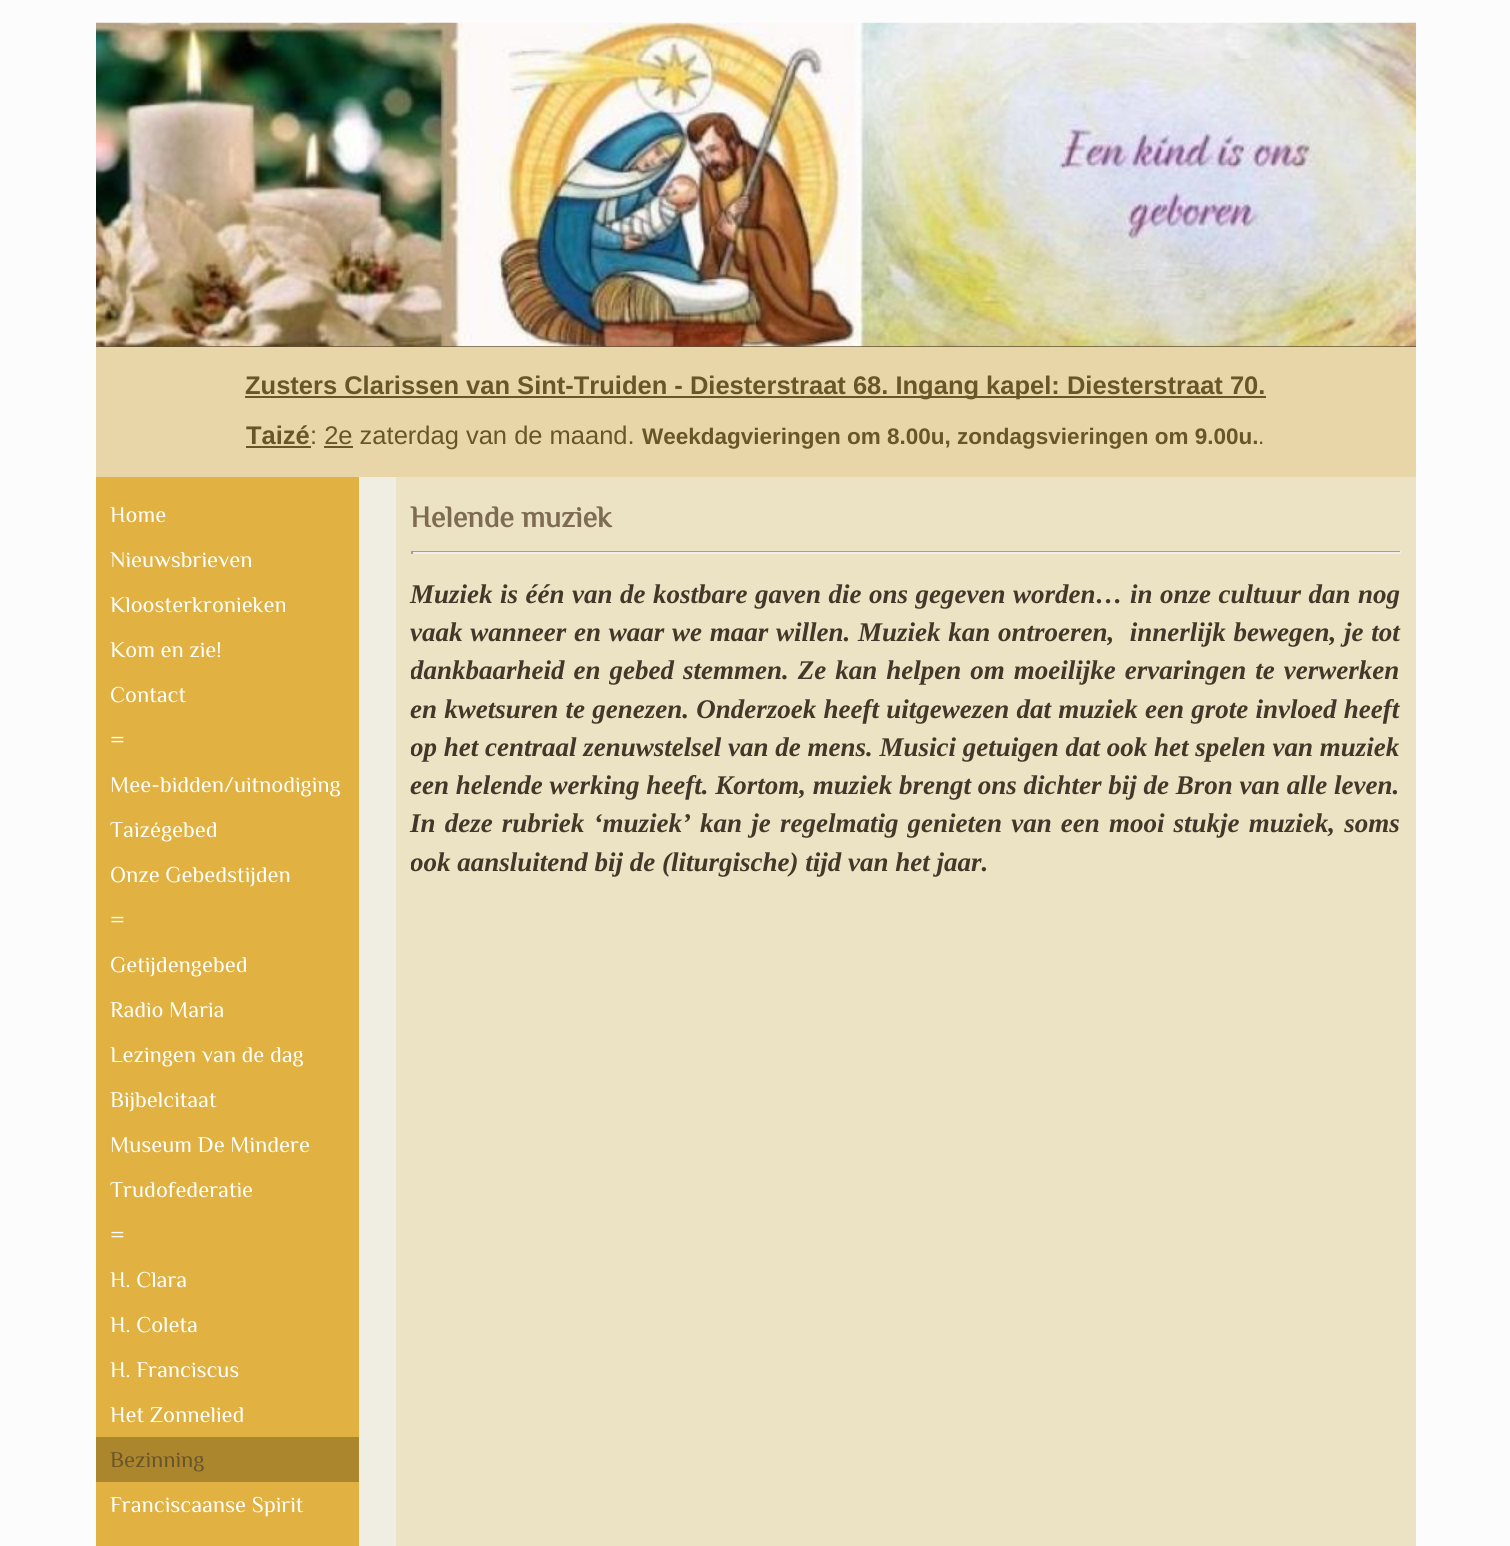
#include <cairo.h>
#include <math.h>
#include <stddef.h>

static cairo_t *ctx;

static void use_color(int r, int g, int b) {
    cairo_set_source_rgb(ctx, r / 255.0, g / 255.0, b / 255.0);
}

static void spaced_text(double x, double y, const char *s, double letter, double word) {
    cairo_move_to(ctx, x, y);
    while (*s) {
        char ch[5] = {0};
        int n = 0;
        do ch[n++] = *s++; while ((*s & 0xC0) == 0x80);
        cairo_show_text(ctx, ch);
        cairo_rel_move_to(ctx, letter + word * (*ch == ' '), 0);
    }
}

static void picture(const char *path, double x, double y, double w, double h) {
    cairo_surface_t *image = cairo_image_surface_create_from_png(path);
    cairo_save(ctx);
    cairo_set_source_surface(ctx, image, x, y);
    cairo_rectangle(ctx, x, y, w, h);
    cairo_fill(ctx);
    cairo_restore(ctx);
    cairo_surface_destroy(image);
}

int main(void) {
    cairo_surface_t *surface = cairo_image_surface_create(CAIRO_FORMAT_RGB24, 1510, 1546);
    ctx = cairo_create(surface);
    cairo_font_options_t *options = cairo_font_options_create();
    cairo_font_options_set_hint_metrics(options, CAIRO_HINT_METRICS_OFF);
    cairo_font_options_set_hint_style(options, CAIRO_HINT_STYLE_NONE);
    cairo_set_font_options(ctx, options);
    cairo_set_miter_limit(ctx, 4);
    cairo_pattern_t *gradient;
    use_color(252, 252, 252);
    cairo_paint(ctx);
    gradient = cairo_pattern_create_linear(756, 22, 756, 477);
    cairo_pattern_add_color_stop_rgba(gradient, 0, 0.282, 0.282, 0.282, 1);
    cairo_pattern_add_color_stop_rgba(gradient, 1, 0.408, 0.333, 0.161, 1);
    cairo_set_source(ctx, gradient);
    cairo_pattern_destroy(gradient);
    cairo_rectangle(ctx, 96, 346, 1320, 1);
    cairo_fill(ctx);
    picture("img1.png", 96, 22, 1320, 325);
    use_color(232, 213, 168);
    cairo_rectangle(ctx, 96, 347, 1320, 130);
    cairo_fill(ctx);
    use_color(104, 85, 41);
    cairo_rectangle(ctx, 245, 396, 1021, 2);
    cairo_fill(ctx);
    cairo_select_font_face(ctx, "Liberation Sans", CAIRO_FONT_SLANT_NORMAL, CAIRO_FONT_WEIGHT_BOLD);
    cairo_set_font_size(ctx, 25.5);
    cairo_move_to(ctx, 245, 394);
    cairo_show_text(ctx, "Zusters Clarissen van Sint-Truiden - Diesterstraat 68. Ingang kapel: Diesterstraat 70.");
    cairo_move_to(ctx, 246, 444);
    cairo_show_text(ctx, "Taizé");
    cairo_select_font_face(ctx, "Liberation Sans", CAIRO_FONT_SLANT_NORMAL, CAIRO_FONT_WEIGHT_NORMAL);
    cairo_move_to(ctx, 310, 444);
    cairo_show_text(ctx, ": 2e zaterdag van de maand.");
    cairo_rectangle(ctx, 246, 446, 65, 2);
    cairo_fill(ctx);
    cairo_rectangle(ctx, 324, 446, 29, 2);
    cairo_fill(ctx);
    cairo_select_font_face(ctx, "Liberation Sans", CAIRO_FONT_SLANT_NORMAL, CAIRO_FONT_WEIGHT_BOLD);
    cairo_set_font_size(ctx, 22.5);
    cairo_move_to(ctx, 642, 444);
    cairo_show_text(ctx, "Weekdagvieringen om 8.00u, zondagsvieringen om 9.00u.");
    cairo_select_font_face(ctx, "Liberation Sans", CAIRO_FONT_SLANT_NORMAL, CAIRO_FONT_WEIGHT_NORMAL);
    cairo_move_to(ctx, 1258, 444);
    cairo_show_text(ctx, ".");
    use_color(225, 177, 65);
    cairo_rectangle(ctx, 96, 477, 263, 1069);
    cairo_fill(ctx);
    cairo_select_font_face(ctx, "Philosopher", CAIRO_FONT_SLANT_NORMAL, CAIRO_FONT_WEIGHT_NORMAL);
    use_color(255, 255, 255);
    cairo_move_to(ctx, 110, 522);
    cairo_show_text(ctx, "Home");
    cairo_move_to(ctx, 110, 567);
    cairo_show_text(ctx, "Nieuwsbrieven");
    cairo_move_to(ctx, 110, 612);
    cairo_show_text(ctx, "Kloosterkronieken");
    cairo_move_to(ctx, 110, 657);
    cairo_show_text(ctx, "Kom en zie!");
    cairo_move_to(ctx, 110, 702);
    cairo_show_text(ctx, "Contact");
    cairo_move_to(ctx, 110, 747);
    cairo_show_text(ctx, "=");
    cairo_move_to(ctx, 110, 792);
    cairo_show_text(ctx, "Mee-bidden/uitnodiging");
    cairo_move_to(ctx, 110, 837);
    cairo_show_text(ctx, "Taizégebed");
    cairo_move_to(ctx, 110, 882);
    cairo_show_text(ctx, "Onze Gebedstijden");
    cairo_move_to(ctx, 110, 927);
    cairo_show_text(ctx, "=");
    cairo_move_to(ctx, 110, 972);
    cairo_show_text(ctx, "Getijdengebed");
    cairo_move_to(ctx, 110, 1017);
    cairo_show_text(ctx, "Radio Maria");
    cairo_move_to(ctx, 110, 1062);
    cairo_show_text(ctx, "Lezingen van de dag");
    cairo_move_to(ctx, 110, 1107);
    cairo_show_text(ctx, "Bijbelcitaat");
    cairo_move_to(ctx, 110, 1152);
    cairo_show_text(ctx, "Museum De Mindere");
    cairo_move_to(ctx, 110, 1197);
    cairo_show_text(ctx, "Trudofederatie");
    cairo_move_to(ctx, 110, 1242);
    cairo_show_text(ctx, "=");
    cairo_move_to(ctx, 110, 1287);
    cairo_show_text(ctx, "H. Clara");
    cairo_move_to(ctx, 110, 1332);
    cairo_show_text(ctx, "H. Coleta");
    cairo_move_to(ctx, 110, 1377);
    cairo_show_text(ctx, "H. Franciscus");
    cairo_move_to(ctx, 110, 1422);
    cairo_show_text(ctx, "Het Zonnelied");
    use_color(172, 134, 45);
    cairo_rectangle(ctx, 96, 1437, 263, 45);
    cairo_fill(ctx);
    use_color(104, 85, 41);
    cairo_move_to(ctx, 110, 1467);
    cairo_show_text(ctx, "Bezinning");
    use_color(255, 255, 255);
    cairo_move_to(ctx, 110, 1512);
    cairo_show_text(ctx, "Franciscaanse Spirit");
    use_color(236, 226, 196);
    cairo_rectangle(ctx, 396, 477, 1020, 1069);
    cairo_fill(ctx);
    cairo_select_font_face(ctx, "Philosopher", CAIRO_FONT_SLANT_NORMAL, CAIRO_FONT_WEIGHT_BOLD);
    cairo_set_font_size(ctx, 30);
    use_color(126, 108, 82);
    cairo_move_to(ctx, 410, 527);
    cairo_show_text(ctx, "Helende muziek");
    use_color(159, 159, 159);
    cairo_rectangle(ctx, 411, 551, 990, 1);
    cairo_fill(ctx);
    use_color(238, 238, 238);
    cairo_rectangle(ctx, 1400, 551, 1, 3);
    cairo_fill(ctx);
    cairo_rectangle(ctx, 411, 552, 990, 2);
    cairo_fill(ctx);
    use_color(159, 159, 159);
    cairo_rectangle(ctx, 411, 551, 2, 3);
    cairo_fill(ctx);
    cairo_select_font_face(ctx, "Liberation Serif", CAIRO_FONT_SLANT_ITALIC, CAIRO_FONT_WEIGHT_BOLD);
    cairo_set_font_size(ctx, 27);
    use_color(66, 56, 41);
    spaced_text(410, 603, "Muziek is één van de kostbare gaven die ons gegeven worden… in onze cultuur dan nog", 0, 0.75);
    spaced_text(410, 641, "vaak wanneer en waar we maar willen. Muziek kan ontroeren,  innerlijk bewegen, je tot", 0, 1);
    cairo_save(ctx);
    cairo_rectangle(ctx, 411, 485, 990, 471);
    cairo_clip(ctx);
    spaced_text(410, 679, "dankbaarheid en gebed stemmen. Ze kan helpen om moeilijke ervaringen te verwerken", 0, 2.25);
    cairo_restore(ctx);
    spaced_text(410, 718, "en kwetsuren te genezen. Onderzoek heeft uitgewezen dat muziek een grote invloed heeft", 0, 0.5);
    cairo_save(ctx);
    cairo_rectangle(ctx, 411, 485, 990, 471);
    cairo_clip(ctx);
    cairo_move_to(ctx, 410, 756);
    cairo_show_text(ctx, "op het centraal zenuwstelsel van de mens. Musici getuigen dat ook het spelen van muziek");
    cairo_restore(ctx);
    cairo_move_to(ctx, 410, 794);
    cairo_show_text(ctx, "een helende werking heeft. Kortom, muziek brengt ons dichter bij de Bron van alle leven.");
    spaced_text(410, 832, "In deze rubriek ‘muziek’ kan je regelmatig genieten van een mooi stukje muziek, soms", 0, 2.4);
    cairo_save(ctx);
    cairo_rectangle(ctx, 411, 485, 990, 471);
    cairo_clip(ctx);
    cairo_move_to(ctx, 410, 871);
    cairo_show_text(ctx, "ook aansluitend bij de (liturgische) tijd van het jaar.");
    cairo_restore(ctx);
    use_color(240, 238, 226);
    cairo_rectangle(ctx, 359, 477, 37, 1069);
    cairo_fill(ctx);
    cairo_surface_write_to_png(surface, "result.png");
    cairo_font_options_destroy(options);
    cairo_destroy(ctx);
    cairo_surface_destroy(surface);
    return 0;
}
